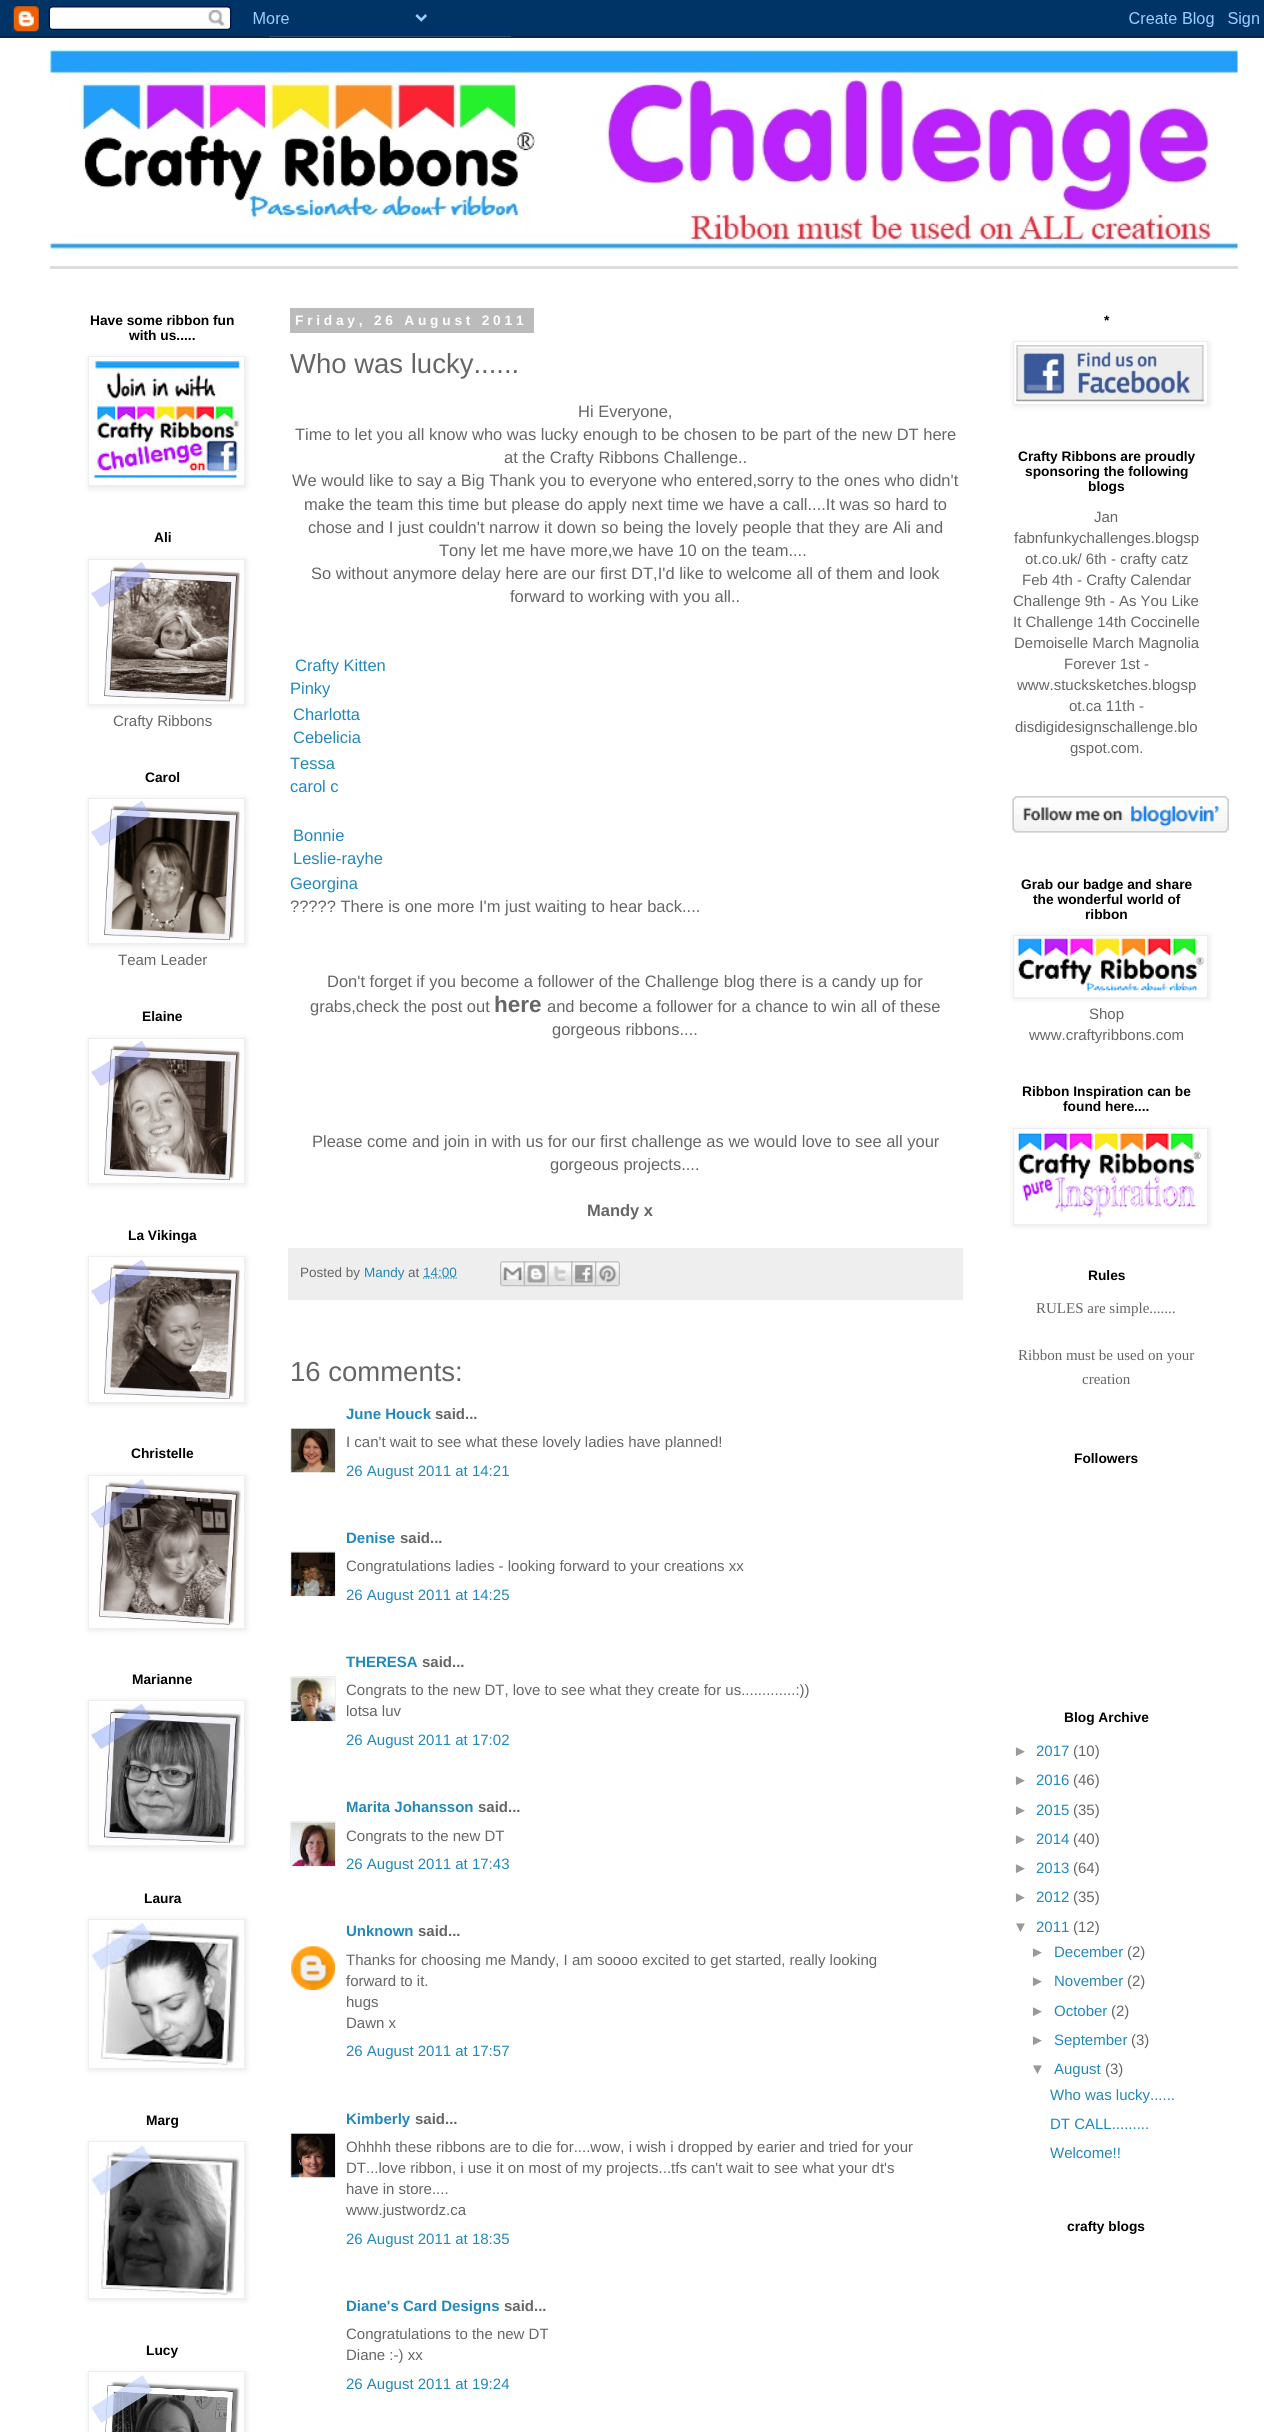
#include <cairo.h>
#include <math.h>
#include <stddef.h>

static cairo_t *ctx;

static void use_color(int r, int g, int b) {
    cairo_set_source_rgb(ctx, r / 255.0, g / 255.0, b / 255.0);
}

static void spaced_text(double x, double y, const char *s, double letter, double word) {
    cairo_move_to(ctx, x, y);
    while (*s) {
        char ch[5] = {0};
        int n = 0;
        do ch[n++] = *s++; while ((*s & 0xC0) == 0x80);
        cairo_show_text(ctx, ch);
        cairo_rel_move_to(ctx, letter + word * (*ch == ' '), 0);
    }
}

static void round_rect(double x, double y, double w, double h, double r) {
    cairo_new_sub_path(ctx);
    cairo_arc(ctx, x + w - r, y + h - r, r, 0, M_PI / 2);
    cairo_arc(ctx, x + r, y + h - r, r, M_PI / 2, M_PI);
    cairo_arc(ctx, x + r, y + r, r, M_PI, 1.5 * M_PI);
    cairo_arc(ctx, x + w - r, y + r, r, 1.5 * M_PI, 2 * M_PI);
    cairo_close_path(ctx);
}

static void shadow(double x, double y, double w, double h, double r, double blur, double alpha) {
    cairo_push_group_with_content(ctx, CAIRO_CONTENT_ALPHA);
    cairo_set_operator(ctx, CAIRO_OPERATOR_SOURCE);
    for (int i = 15; i >= -15 && fmin(w, h) + blur * i / 3 > 0; i -= 2) {
        double e = blur * i / 6;
        cairo_set_source_rgba(ctx, 0, 0, 0, alpha * erfc((i - 1) / 8.5) / 2);
        round_rect(x - e, y - e, w + 2 * e, h + 2 * e, fmax(0, fmin(r + e + blur * .6, fmin(w, h) / 2 + e)));
        cairo_fill(ctx);
    }
    cairo_pattern_t *soft = cairo_pop_group(ctx);
    cairo_mask(ctx, soft);
    cairo_pattern_destroy(soft);
}

static void picture(const char *path, double x, double y, double w, double h) {
    cairo_surface_t *image = cairo_image_surface_create_from_png(path);
    cairo_save(ctx);
    cairo_set_source_surface(ctx, image, x, y);
    cairo_rectangle(ctx, x, y, w, h);
    cairo_fill(ctx);
    cairo_restore(ctx);
    cairo_surface_destroy(image);
}

int main(void) {
    cairo_surface_t *surface = cairo_image_surface_create(CAIRO_FORMAT_RGB24, 1264, 2432);
    ctx = cairo_create(surface);
    cairo_font_options_t *options = cairo_font_options_create();
    cairo_font_options_set_hint_metrics(options, CAIRO_HINT_METRICS_OFF);
    cairo_font_options_set_hint_style(options, CAIRO_HINT_STYLE_NONE);
    cairo_set_font_options(ctx, options);
    cairo_set_miter_limit(ctx, 4);
    use_color(255, 255, 255);
    cairo_paint(ctx);
    picture("img1.png", 0, 0, 1264, 38);
    picture("img2.png", 50, 50, 1188, 201);
    use_color(221, 221, 221);
    cairo_rectangle(ctx, 50, 266, 1188, 3);
    cairo_fill(ctx);
    cairo_select_font_face(ctx, "Liberation Sans", CAIRO_FONT_SLANT_NORMAL, CAIRO_FONT_WEIGHT_BOLD);
    cairo_set_font_size(ctx, 13.75);
    use_color(0, 0, 0);
    cairo_move_to(ctx, 90, 325);
    cairo_show_text(ctx, "Have some ribbon fun");
    cairo_move_to(ctx, 129, 340);
    cairo_show_text(ctx, "with us.....");
    use_color(0, 0, 0);
    shadow(89, 358, 157, 130, 0, 3, 0.1);
    use_color(255, 255, 255);
    cairo_rectangle(ctx, 88.5, 356.5, 156, 129);
    cairo_fill_preserve(ctx);
    use_color(238, 238, 238);
    cairo_set_line_width(ctx, 1);
    cairo_stroke(ctx);
    picture("img3.png", 91, 360, 151, 120);
    use_color(0, 0, 0);
    cairo_move_to(ctx, 154, 542);
    cairo_show_text(ctx, "Ali");
    cairo_save(ctx);
    cairo_set_fill_rule(ctx, CAIRO_FILL_RULE_EVEN_ODD);
    cairo_new_path(ctx);
    cairo_move_to(ctx, 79, 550);
    cairo_line_to(ctx, 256, 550);
    cairo_line_to(ctx, 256, 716);
    cairo_line_to(ctx, 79, 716);
    cairo_close_path(ctx);
    cairo_move_to(ctx, 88, 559);
    cairo_line_to(ctx, 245, 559);
    cairo_line_to(ctx, 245, 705);
    cairo_line_to(ctx, 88, 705);
    cairo_close_path(ctx);
    cairo_clip(ctx);
    use_color(0, 0, 0);
    shadow(89, 560, 157, 146, 0, 3, 0.1);
    cairo_restore(ctx);
    cairo_rectangle(ctx, 88.5, 559.5, 156, 145);
    use_color(238, 238, 238);
    cairo_stroke(ctx);
    picture("img4.png", 91, 562, 150, 140);
    cairo_select_font_face(ctx, "Liberation Sans", CAIRO_FONT_SLANT_NORMAL, CAIRO_FONT_WEIGHT_NORMAL);
    cairo_set_font_size(ctx, 15);
    use_color(102, 102, 102);
    cairo_move_to(ctx, 113, 726);
    cairo_show_text(ctx, "Crafty Ribbons");
    cairo_select_font_face(ctx, "Liberation Sans", CAIRO_FONT_SLANT_NORMAL, CAIRO_FONT_WEIGHT_BOLD);
    cairo_set_font_size(ctx, 13.75);
    use_color(0, 0, 0);
    cairo_move_to(ctx, 145, 782);
    cairo_show_text(ctx, "Carol");
    use_color(0, 0, 0);
    shadow(89, 799, 157, 146, 0, 3, 0.1);
    use_color(255, 255, 255);
    cairo_rectangle(ctx, 88.5, 798.5, 156, 145);
    cairo_fill_preserve(ctx);
    use_color(238, 238, 238);
    cairo_stroke(ctx);
    picture("img5.png", 91, 801, 150, 139);
    cairo_select_font_face(ctx, "Liberation Sans", CAIRO_FONT_SLANT_NORMAL, CAIRO_FONT_WEIGHT_NORMAL);
    cairo_set_font_size(ctx, 15);
    use_color(102, 102, 102);
    cairo_move_to(ctx, 118, 965);
    cairo_show_text(ctx, "Team Leader");
    cairo_select_font_face(ctx, "Liberation Sans", CAIRO_FONT_SLANT_NORMAL, CAIRO_FONT_WEIGHT_BOLD);
    cairo_set_font_size(ctx, 13.75);
    use_color(0, 0, 0);
    cairo_move_to(ctx, 142, 1021);
    cairo_show_text(ctx, "Elaine");
    use_color(0, 0, 0);
    shadow(89, 1039, 157, 146, 0, 3, 0.1);
    use_color(255, 255, 255);
    cairo_rectangle(ctx, 88.5, 1038.5, 156, 145);
    cairo_fill_preserve(ctx);
    use_color(238, 238, 238);
    cairo_stroke(ctx);
    picture("img6.png", 91, 1041, 150, 139);
    use_color(0, 0, 0);
    cairo_move_to(ctx, 128, 1240);
    cairo_show_text(ctx, "La Vikinga");
    use_color(0, 0, 0);
    shadow(89, 1258, 157, 146, 0, 3, 0.1);
    use_color(255, 255, 255);
    cairo_rectangle(ctx, 88.5, 1256.5, 156, 146);
    cairo_fill_preserve(ctx);
    use_color(238, 238, 238);
    cairo_stroke(ctx);
    picture("img7.png", 91, 1260, 150, 139);
    use_color(0, 0, 0);
    cairo_move_to(ctx, 131, 1458);
    cairo_show_text(ctx, "Christelle");
    use_color(0, 0, 0);
    shadow(89, 1476, 157, 154, 0, 3, 0.1);
    use_color(255, 255, 255);
    cairo_rectangle(ctx, 88.5, 1475.5, 156, 153);
    cairo_fill_preserve(ctx);
    use_color(238, 238, 238);
    cairo_stroke(ctx);
    picture("img8.png", 91, 1478, 151, 147);
    use_color(0, 0, 0);
    cairo_move_to(ctx, 132, 1684);
    cairo_show_text(ctx, "Marianne");
    cairo_save(ctx);
    cairo_set_fill_rule(ctx, CAIRO_FILL_RULE_EVEN_ODD);
    cairo_new_path(ctx);
    cairo_move_to(ctx, 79, 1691);
    cairo_line_to(ctx, 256, 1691);
    cairo_line_to(ctx, 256, 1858);
    cairo_line_to(ctx, 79, 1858);
    cairo_close_path(ctx);
    cairo_move_to(ctx, 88, 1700);
    cairo_line_to(ctx, 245, 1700);
    cairo_line_to(ctx, 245, 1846);
    cairo_line_to(ctx, 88, 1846);
    cairo_close_path(ctx);
    cairo_clip(ctx);
    use_color(0, 0, 0);
    shadow(89, 1701, 157, 147, 0, 3, 0.1);
    cairo_restore(ctx);
    cairo_rectangle(ctx, 88.5, 1700.5, 156, 145);
    use_color(238, 238, 238);
    cairo_stroke(ctx);
    picture("img9.png", 91, 1703, 151, 140);
    use_color(0, 0, 0);
    cairo_move_to(ctx, 144, 1903);
    cairo_show_text(ctx, "Laura");
    use_color(0, 0, 0);
    shadow(89, 1920, 157, 150, 0, 3, 0.1);
    use_color(255, 255, 255);
    cairo_rectangle(ctx, 88.5, 1919.5, 156, 149);
    cairo_fill_preserve(ctx);
    use_color(238, 238, 238);
    cairo_stroke(ctx);
    picture("img10.png", 91, 1922, 150, 143);
    use_color(0, 0, 0);
    cairo_move_to(ctx, 146, 2125);
    cairo_show_text(ctx, "Marg");
    use_color(0, 0, 0);
    shadow(89, 2143, 157, 157, 0, 3, 0.1);
    use_color(255, 255, 255);
    cairo_rectangle(ctx, 88.5, 2141.5, 156, 157);
    cairo_fill_preserve(ctx);
    use_color(238, 238, 238);
    cairo_stroke(ctx);
    picture("img11.png", 91, 2145, 150, 150);
    use_color(0, 0, 0);
    cairo_move_to(ctx, 146, 2355);
    cairo_show_text(ctx, "Lucy");
    use_color(0, 0, 0);
    shadow(89, 2373, 157, 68, 0, 3, 0.1);
    use_color(255, 255, 255);
    cairo_rectangle(ctx, 88.5, 2371.5, 156, 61);
    cairo_fill_preserve(ctx);
    use_color(238, 238, 238);
    cairo_stroke(ctx);
    picture("img12.png", 91, 2375, 149, 57);
    use_color(187, 187, 187);
    cairo_rectangle(ctx, 290, 308, 244, 25);
    cairo_fill(ctx);
    use_color(255, 255, 255);
    spaced_text(295, 325, "Friday, 26 August 2011", 3.75, 0);
    cairo_select_font_face(ctx, "Liberation Sans", CAIRO_FONT_SLANT_NORMAL, CAIRO_FONT_WEIGHT_NORMAL);
    cairo_set_font_size(ctx, 27.5);
    use_color(102, 102, 102);
    cairo_move_to(ctx, 290, 373);
    cairo_show_text(ctx, "Who was lucky......");
    cairo_set_font_size(ctx, 16.5);
    cairo_move_to(ctx, 578, 417);
    cairo_show_text(ctx, "Hi Everyone,");
    cairo_move_to(ctx, 295, 440);
    cairo_show_text(ctx, "Time to let you all know who was lucky enough to be chosen to be part of the new DT here");
    cairo_move_to(ctx, 504, 463);
    cairo_show_text(ctx, "at the Crafty Ribbons Challenge..");
    cairo_move_to(ctx, 292, 486);
    cairo_show_text(ctx, "We would like to say a Big Thank you to everyone who entered,sorry to the ones who didn't");
    cairo_move_to(ctx, 304, 510);
    cairo_show_text(ctx, "make the team this time but please do apply next time we have a call....It was so hard to");
    cairo_move_to(ctx, 308, 533);
    cairo_show_text(ctx, "chose and I just couldn't narrow it down so being the lovely people that they are Ali and");
    cairo_move_to(ctx, 439, 556);
    cairo_show_text(ctx, "Tony let me have more,we have 10 on the team....");
    cairo_move_to(ctx, 311, 579);
    cairo_show_text(ctx, "So without anymore delay here are our first DT,I'd like to welcome all of them and look");
    cairo_move_to(ctx, 510, 602);
    cairo_show_text(ctx, "forward to working with you all..");
    use_color(34, 136, 187);
    cairo_move_to(ctx, 295, 671);
    cairo_show_text(ctx, "Crafty Kitten");
    cairo_move_to(ctx, 290, 694);
    cairo_show_text(ctx, "Pinky");
    cairo_move_to(ctx, 293, 720);
    cairo_show_text(ctx, "Charlotta");
    cairo_move_to(ctx, 293, 743);
    cairo_show_text(ctx, "Cebelicia");
    cairo_move_to(ctx, 290, 769);
    cairo_show_text(ctx, "Tessa");
    cairo_move_to(ctx, 290, 792);
    cairo_show_text(ctx, "carol c");
    cairo_move_to(ctx, 293, 841);
    cairo_show_text(ctx, "Bonnie");
    cairo_move_to(ctx, 293, 864);
    cairo_show_text(ctx, "Leslie-rayhe");
    cairo_move_to(ctx, 290, 889);
    cairo_show_text(ctx, "Georgina");
    use_color(102, 102, 102);
    cairo_move_to(ctx, 290, 912);
    cairo_show_text(ctx, "?\077?\077? There is one more I'm just waiting to hear back....");
    cairo_move_to(ctx, 327, 987);
    cairo_show_text(ctx, "Don't forget if you become a follower of the Challenge blog there is a candy up for");
    cairo_move_to(ctx, 310, 1012);
    cairo_show_text(ctx, "grabs,check the post out");
    cairo_select_font_face(ctx, "Liberation Sans", CAIRO_FONT_SLANT_NORMAL, CAIRO_FONT_WEIGHT_BOLD);
    cairo_set_font_size(ctx, 22.5);
    cairo_move_to(ctx, 494, 1012);
    cairo_show_text(ctx, "here");
    cairo_select_font_face(ctx, "Liberation Sans", CAIRO_FONT_SLANT_NORMAL, CAIRO_FONT_WEIGHT_NORMAL);
    cairo_set_font_size(ctx, 16.5);
    cairo_move_to(ctx, 547, 1012);
    cairo_show_text(ctx, "and become a follower for a chance to win all of these");
    cairo_move_to(ctx, 552, 1035);
    cairo_show_text(ctx, "gorgeous ribbons....");
    cairo_move_to(ctx, 312, 1147);
    cairo_show_text(ctx, "Please come and join in with us for our first challenge as we would love to see all your");
    cairo_move_to(ctx, 550, 1170);
    cairo_show_text(ctx, "gorgeous projects....");
    cairo_select_font_face(ctx, "Liberation Sans", CAIRO_FONT_SLANT_NORMAL, CAIRO_FONT_WEIGHT_BOLD);
    cairo_move_to(ctx, 587, 1216);
    cairo_show_text(ctx, "Mandy x");
    use_color(238, 238, 238);
    cairo_rectangle(ctx, 288, 1248, 675, 52);
    cairo_fill(ctx);
    cairo_select_font_face(ctx, "Liberation Sans", CAIRO_FONT_SLANT_NORMAL, CAIRO_FONT_WEIGHT_NORMAL);
    cairo_set_font_size(ctx, 13.5);
    use_color(102, 102, 102);
    cairo_move_to(ctx, 300, 1277);
    cairo_show_text(ctx, "Posted by");
    use_color(34, 136, 187);
    cairo_move_to(ctx, 364, 1277);
    cairo_show_text(ctx, "Mandy");
    use_color(102, 102, 102);
    cairo_move_to(ctx, 408, 1277);
    cairo_show_text(ctx, "at");
    cairo_new_path(ctx);
    cairo_move_to(ctx, 423, 1278);
    cairo_line_to(ctx, 457, 1278);
    use_color(34, 136, 187);
    cairo_set_line_width(ctx, 1.2);
    cairo_set_dash(ctx, (double[]){1.25, 1.25}, 2, 0);
    cairo_stroke(ctx);
    cairo_move_to(ctx, 423, 1277);
    cairo_show_text(ctx, "14:00");
    picture("img13.png", 500, 1261, 25, 26);
    picture("img14.png", 523, 1261, 26, 26);
    picture("img15.png", 547, 1261, 26, 26);
    picture("img16.png", 571, 1261, 26, 26);
    picture("img17.png", 595, 1261, 25, 26);
    cairo_set_font_size(ctx, 27.5);
    use_color(102, 102, 102);
    cairo_move_to(ctx, 290, 1381);
    cairo_show_text(ctx, "16 comments:");
    cairo_select_font_face(ctx, "Liberation Sans", CAIRO_FONT_SLANT_NORMAL, CAIRO_FONT_WEIGHT_BOLD);
    cairo_set_font_size(ctx, 15);
    use_color(34, 136, 187);
    cairo_move_to(ctx, 346, 1419);
    cairo_show_text(ctx, "June Houck");
    use_color(102, 102, 102);
    cairo_move_to(ctx, 435, 1419);
    cairo_show_text(ctx, "said...");
    cairo_save(ctx);
    cairo_rectangle(ctx, 290, 1428, 46, 45);
    cairo_clip(ctx);
    cairo_rectangle(ctx, 290.5, 1428.5, 45, 45);
    use_color(238, 238, 238);
    cairo_set_line_width(ctx, 1);
    cairo_set_dash(ctx, NULL, 0, 0);
    cairo_stroke(ctx);
    cairo_restore(ctx);
    picture("img18.png", 291, 1428, 44, 45);
    cairo_select_font_face(ctx, "Liberation Sans", CAIRO_FONT_SLANT_NORMAL, CAIRO_FONT_WEIGHT_NORMAL);
    cairo_move_to(ctx, 346, 1447);
    cairo_show_text(ctx, "I can't wait to see what these lovely ladies have planned!");
    use_color(34, 136, 187);
    cairo_move_to(ctx, 346, 1476);
    cairo_show_text(ctx, "26 August 2011 at 14:21");
    cairo_select_font_face(ctx, "Liberation Sans", CAIRO_FONT_SLANT_NORMAL, CAIRO_FONT_WEIGHT_BOLD);
    cairo_move_to(ctx, 346, 1543);
    cairo_show_text(ctx, "Denise");
    use_color(102, 102, 102);
    cairo_move_to(ctx, 400, 1543);
    cairo_show_text(ctx, "said...");
    cairo_save(ctx);
    cairo_rectangle(ctx, 290, 1551, 46, 45);
    cairo_clip(ctx);
    cairo_rectangle(ctx, 290.5, 1551.5, 45, 46);
    use_color(238, 238, 238);
    cairo_set_line_width(ctx, 1);
    cairo_set_dash(ctx, NULL, 0, 0);
    cairo_stroke(ctx);
    cairo_restore(ctx);
    picture("img19.png", 291, 1552, 44, 45);
    cairo_select_font_face(ctx, "Liberation Sans", CAIRO_FONT_SLANT_NORMAL, CAIRO_FONT_WEIGHT_NORMAL);
    cairo_move_to(ctx, 346, 1571);
    cairo_show_text(ctx, "Congratulations ladies - looking forward to your creations xx");
    use_color(34, 136, 187);
    cairo_move_to(ctx, 346, 1600);
    cairo_show_text(ctx, "26 August 2011 at 14:25");
    cairo_select_font_face(ctx, "Liberation Sans", CAIRO_FONT_SLANT_NORMAL, CAIRO_FONT_WEIGHT_BOLD);
    cairo_move_to(ctx, 346, 1667);
    cairo_show_text(ctx, "THERESA");
    use_color(102, 102, 102);
    cairo_move_to(ctx, 422, 1667);
    cairo_show_text(ctx, "said...");
    cairo_save(ctx);
    cairo_rectangle(ctx, 290, 1676, 46, 45);
    cairo_clip(ctx);
    cairo_rectangle(ctx, 290.5, 1676.5, 45, 46);
    use_color(238, 238, 238);
    cairo_set_line_width(ctx, 1);
    cairo_set_dash(ctx, NULL, 0, 0);
    cairo_stroke(ctx);
    cairo_restore(ctx);
    picture("img20.png", 291, 1677, 44, 45);
    cairo_select_font_face(ctx, "Liberation Sans", CAIRO_FONT_SLANT_NORMAL, CAIRO_FONT_WEIGHT_NORMAL);
    cairo_move_to(ctx, 346, 1695);
    cairo_show_text(ctx, "Congrats to the new DT, love to see what they create for us.............:))");
    cairo_move_to(ctx, 346, 1716);
    cairo_show_text(ctx, "lotsa luv");
    use_color(34, 136, 187);
    cairo_move_to(ctx, 346, 1745);
    cairo_show_text(ctx, "26 August 2011 at 17:02");
    cairo_select_font_face(ctx, "Liberation Sans", CAIRO_FONT_SLANT_NORMAL, CAIRO_FONT_WEIGHT_BOLD);
    cairo_move_to(ctx, 346, 1812);
    cairo_show_text(ctx, "Marita Johansson");
    use_color(102, 102, 102);
    cairo_move_to(ctx, 478, 1812);
    cairo_show_text(ctx, "said...");
    cairo_save(ctx);
    cairo_rectangle(ctx, 290, 1821, 46, 45);
    cairo_clip(ctx);
    cairo_rectangle(ctx, 290.5, 1821.5, 45, 46);
    use_color(238, 238, 238);
    cairo_set_line_width(ctx, 1);
    cairo_set_dash(ctx, NULL, 0, 0);
    cairo_stroke(ctx);
    cairo_restore(ctx);
    picture("img21.png", 291, 1822, 44, 45);
    cairo_select_font_face(ctx, "Liberation Sans", CAIRO_FONT_SLANT_NORMAL, CAIRO_FONT_WEIGHT_NORMAL);
    cairo_move_to(ctx, 346, 1841);
    cairo_show_text(ctx, "Congrats to the new DT");
    use_color(34, 136, 187);
    cairo_move_to(ctx, 346, 1869);
    cairo_show_text(ctx, "26 August 2011 at 17:43");
    cairo_select_font_face(ctx, "Liberation Sans", CAIRO_FONT_SLANT_NORMAL, CAIRO_FONT_WEIGHT_BOLD);
    cairo_move_to(ctx, 346, 1936);
    cairo_show_text(ctx, "Unknown");
    use_color(102, 102, 102);
    cairo_move_to(ctx, 418, 1936);
    cairo_show_text(ctx, "said...");
    picture("img22.png", 291, 1946, 44, 44);
    cairo_select_font_face(ctx, "Liberation Sans", CAIRO_FONT_SLANT_NORMAL, CAIRO_FONT_WEIGHT_NORMAL);
    cairo_move_to(ctx, 346, 1965);
    cairo_show_text(ctx, "Thanks for choosing me Mandy, I am soooo excited to get started, really looking");
    cairo_move_to(ctx, 346, 1986);
    cairo_show_text(ctx, "forward to it.");
    cairo_move_to(ctx, 346, 2007);
    cairo_show_text(ctx, "hugs");
    cairo_move_to(ctx, 346, 2028);
    cairo_show_text(ctx, "Dawn x");
    use_color(34, 136, 187);
    cairo_move_to(ctx, 346, 2056);
    cairo_show_text(ctx, "26 August 2011 at 17:57");
    cairo_select_font_face(ctx, "Liberation Sans", CAIRO_FONT_SLANT_NORMAL, CAIRO_FONT_WEIGHT_BOLD);
    cairo_move_to(ctx, 346, 2124);
    cairo_show_text(ctx, "Kimberly");
    use_color(102, 102, 102);
    cairo_move_to(ctx, 415, 2124);
    cairo_show_text(ctx, "said...");
    cairo_save(ctx);
    cairo_rectangle(ctx, 290, 2133, 46, 45);
    cairo_clip(ctx);
    cairo_rectangle(ctx, 290.5, 2133.5, 45, 45);
    use_color(238, 238, 238);
    cairo_set_line_width(ctx, 1);
    cairo_set_dash(ctx, NULL, 0, 0);
    cairo_stroke(ctx);
    cairo_restore(ctx);
    picture("img23.png", 291, 2133, 44, 45);
    cairo_select_font_face(ctx, "Liberation Sans", CAIRO_FONT_SLANT_NORMAL, CAIRO_FONT_WEIGHT_NORMAL);
    cairo_move_to(ctx, 346, 2152);
    cairo_show_text(ctx, "Ohhhh these ribbons are to die for....wow, i wish i dropped by earier and tried for your");
    cairo_move_to(ctx, 346, 2173);
    cairo_show_text(ctx, "DT...love ribbon, i use it on most of my projects...tfs can't wait to see what your dt's");
    cairo_move_to(ctx, 346, 2194);
    cairo_show_text(ctx, "have in store....");
    cairo_move_to(ctx, 346, 2215);
    cairo_show_text(ctx, "www.justwordz.ca");
    use_color(34, 136, 187);
    cairo_move_to(ctx, 346, 2244);
    cairo_show_text(ctx, "26 August 2011 at 18:35");
    cairo_select_font_face(ctx, "Liberation Sans", CAIRO_FONT_SLANT_NORMAL, CAIRO_FONT_WEIGHT_BOLD);
    cairo_move_to(ctx, 346, 2311);
    cairo_show_text(ctx, "Diane's Card Designs");
    use_color(102, 102, 102);
    cairo_move_to(ctx, 504, 2311);
    cairo_show_text(ctx, "said...");
    cairo_select_font_face(ctx, "Liberation Sans", CAIRO_FONT_SLANT_NORMAL, CAIRO_FONT_WEIGHT_NORMAL);
    cairo_move_to(ctx, 346, 2339);
    cairo_show_text(ctx, "Congratulations to the new DT");
    cairo_move_to(ctx, 346, 2360);
    cairo_show_text(ctx, "Diane :-) xx");
    use_color(34, 136, 187);
    cairo_move_to(ctx, 346, 2389);
    cairo_show_text(ctx, "26 August 2011 at 19:24");
    cairo_select_font_face(ctx, "Liberation Sans", CAIRO_FONT_SLANT_NORMAL, CAIRO_FONT_WEIGHT_BOLD);
    cairo_set_font_size(ctx, 13.75);
    use_color(0, 0, 0);
    cairo_move_to(ctx, 1104, 325);
    cairo_show_text(ctx, "*");
    use_color(0, 0, 0);
    shadow(1014, 343, 195, 63, 0, 3, 0.1);
    use_color(255, 255, 255);
    cairo_rectangle(ctx, 1013.5, 341.5, 194, 63);
    cairo_fill_preserve(ctx);
    use_color(238, 238, 238);
    cairo_set_line_width(ctx, 1);
    cairo_set_dash(ctx, NULL, 0, 0);
    cairo_stroke(ctx);
    picture("img24.png", 1016, 345, 188, 57);
    use_color(0, 0, 0);
    cairo_move_to(ctx, 1018, 461);
    cairo_show_text(ctx, "Crafty Ribbons are proudly");
    cairo_move_to(ctx, 1025, 476);
    cairo_show_text(ctx, "sponsoring the following");
    cairo_move_to(ctx, 1088, 491);
    cairo_show_text(ctx, "blogs");
    cairo_select_font_face(ctx, "Liberation Sans", CAIRO_FONT_SLANT_NORMAL, CAIRO_FONT_WEIGHT_NORMAL);
    cairo_set_font_size(ctx, 15);
    use_color(102, 102, 102);
    cairo_move_to(ctx, 1094, 522);
    cairo_show_text(ctx, "Jan");
    cairo_move_to(ctx, 1014, 543);
    cairo_show_text(ctx, "fabnfunkychallenges.blogsp");
    cairo_move_to(ctx, 1025, 564);
    cairo_show_text(ctx, "ot.co.uk/ 6th - crafty catz");
    cairo_move_to(ctx, 1022, 585);
    cairo_show_text(ctx, "Feb 4th - Crafty Calendar");
    cairo_move_to(ctx, 1013, 606);
    cairo_show_text(ctx, "Challenge 9th - As You Like");
    cairo_move_to(ctx, 1013, 627);
    cairo_show_text(ctx, "It Challenge 14th Coccinelle");
    cairo_move_to(ctx, 1014, 648);
    cairo_show_text(ctx, "Demoiselle March Magnolia");
    cairo_move_to(ctx, 1064, 669);
    cairo_show_text(ctx, "Forever 1st -");
    cairo_move_to(ctx, 1017, 690);
    cairo_show_text(ctx, "www.stucksketches.blogsp");
    cairo_move_to(ctx, 1069, 711);
    cairo_show_text(ctx, "ot.ca 11th -");
    cairo_move_to(ctx, 1015, 732);
    cairo_show_text(ctx, "disdigidesignschallenge.blo");
    cairo_move_to(ctx, 1070, 753);
    cairo_show_text(ctx, "gspot.com.");
    picture("img25.png", 1012, 796, 217, 37);
    cairo_select_font_face(ctx, "Liberation Sans", CAIRO_FONT_SLANT_NORMAL, CAIRO_FONT_WEIGHT_BOLD);
    cairo_set_font_size(ctx, 13.75);
    use_color(0, 0, 0);
    cairo_move_to(ctx, 1021, 889);
    cairo_show_text(ctx, "Grab our badge and share");
    cairo_move_to(ctx, 1033, 904);
    cairo_show_text(ctx, "the wonderful world of");
    cairo_move_to(ctx, 1085, 919);
    cairo_show_text(ctx, "ribbon");
    use_color(0, 0, 0);
    shadow(1014, 936, 195, 63, 0, 3, 0.1);
    use_color(255, 255, 255);
    cairo_rectangle(ctx, 1013.5, 935.5, 194, 62);
    cairo_fill_preserve(ctx);
    use_color(238, 238, 238);
    cairo_stroke(ctx);
    picture("img26.png", 1017, 938, 187, 54);
    cairo_select_font_face(ctx, "Liberation Sans", CAIRO_FONT_SLANT_NORMAL, CAIRO_FONT_WEIGHT_NORMAL);
    cairo_set_font_size(ctx, 15);
    use_color(102, 102, 102);
    cairo_move_to(ctx, 1089, 1019);
    cairo_show_text(ctx, "Shop");
    cairo_move_to(ctx, 1029, 1040);
    cairo_show_text(ctx, "www.craftyribbons.com");
    cairo_select_font_face(ctx, "Liberation Sans", CAIRO_FONT_SLANT_NORMAL, CAIRO_FONT_WEIGHT_BOLD);
    cairo_set_font_size(ctx, 13.75);
    use_color(0, 0, 0);
    cairo_move_to(ctx, 1022, 1096);
    cairo_show_text(ctx, "Ribbon Inspiration can be");
    cairo_move_to(ctx, 1063, 1111);
    cairo_show_text(ctx, "found here....");
    use_color(0, 0, 0);
    shadow(1014, 1129, 195, 97, 0, 3, 0.1);
    use_color(255, 255, 255);
    cairo_rectangle(ctx, 1013.5, 1128.5, 194, 96);
    cairo_fill_preserve(ctx);
    use_color(238, 238, 238);
    cairo_stroke(ctx);
    picture("img27.png", 1017, 1132, 185, 86);
    use_color(0, 0, 0);
    cairo_move_to(ctx, 1088, 1280);
    cairo_show_text(ctx, "Rules");
    cairo_select_font_face(ctx, "Liberation Serif", CAIRO_FONT_SLANT_NORMAL, CAIRO_FONT_WEIGHT_NORMAL);
    cairo_set_font_size(ctx, 15);
    use_color(102, 102, 102);
    cairo_move_to(ctx, 1036, 1313);
    cairo_show_text(ctx, "RULES are simple.......");
    cairo_move_to(ctx, 1018, 1360);
    cairo_show_text(ctx, "Ribbon must be used on your");
    cairo_move_to(ctx, 1082, 1384);
    cairo_show_text(ctx, "creation");
    cairo_select_font_face(ctx, "Liberation Sans", CAIRO_FONT_SLANT_NORMAL, CAIRO_FONT_WEIGHT_BOLD);
    cairo_set_font_size(ctx, 13.75);
    use_color(0, 0, 0);
    cairo_move_to(ctx, 1074, 1463);
    cairo_show_text(ctx, "Followers");
    cairo_move_to(ctx, 1064, 1722);
    cairo_show_text(ctx, "Blog Archive");
    cairo_select_font_face(ctx, "Liberation Sans", CAIRO_FONT_SLANT_NORMAL, CAIRO_FONT_WEIGHT_NORMAL);
    cairo_set_font_size(ctx, 15);
    use_color(153, 153, 153);
    cairo_move_to(ctx, 1013, 1756);
    cairo_show_text(ctx, "►");
    use_color(34, 136, 187);
    cairo_move_to(ctx, 1036, 1756);
    cairo_show_text(ctx, "2017");
    use_color(102, 102, 102);
    cairo_move_to(ctx, 1073, 1756);
    cairo_show_text(ctx, "(10)");
    use_color(153, 153, 153);
    cairo_move_to(ctx, 1013, 1785);
    cairo_show_text(ctx, "►");
    use_color(34, 136, 187);
    cairo_move_to(ctx, 1036, 1785);
    cairo_show_text(ctx, "2016");
    use_color(102, 102, 102);
    cairo_move_to(ctx, 1073, 1785);
    cairo_show_text(ctx, "(46)");
    use_color(153, 153, 153);
    cairo_move_to(ctx, 1013, 1815);
    cairo_show_text(ctx, "►");
    use_color(34, 136, 187);
    cairo_move_to(ctx, 1036, 1815);
    cairo_show_text(ctx, "2015");
    use_color(102, 102, 102);
    cairo_move_to(ctx, 1073, 1815);
    cairo_show_text(ctx, "(35)");
    use_color(153, 153, 153);
    cairo_move_to(ctx, 1013, 1844);
    cairo_show_text(ctx, "►");
    use_color(34, 136, 187);
    cairo_move_to(ctx, 1036, 1844);
    cairo_show_text(ctx, "2014");
    use_color(102, 102, 102);
    cairo_move_to(ctx, 1073, 1844);
    cairo_show_text(ctx, "(40)");
    use_color(153, 153, 153);
    cairo_move_to(ctx, 1013, 1873);
    cairo_show_text(ctx, "►");
    use_color(34, 136, 187);
    cairo_move_to(ctx, 1036, 1873);
    cairo_show_text(ctx, "2013");
    use_color(102, 102, 102);
    cairo_move_to(ctx, 1073, 1873);
    cairo_show_text(ctx, "(64)");
    use_color(153, 153, 153);
    cairo_move_to(ctx, 1013, 1902);
    cairo_show_text(ctx, "►");
    use_color(34, 136, 187);
    cairo_move_to(ctx, 1036, 1902);
    cairo_show_text(ctx, "2012");
    use_color(102, 102, 102);
    cairo_move_to(ctx, 1073, 1902);
    cairo_show_text(ctx, "(35)");
    use_color(153, 153, 153);
    cairo_move_to(ctx, 1013, 1932);
    cairo_show_text(ctx, "▼");
    use_color(34, 136, 187);
    cairo_move_to(ctx, 1036, 1932);
    cairo_show_text(ctx, "2011");
    use_color(102, 102, 102);
    cairo_move_to(ctx, 1073, 1932);
    cairo_show_text(ctx, "(12)");
    use_color(153, 153, 153);
    cairo_move_to(ctx, 1030, 1957);
    cairo_show_text(ctx, "►");
    use_color(34, 136, 187);
    cairo_move_to(ctx, 1054, 1957);
    cairo_show_text(ctx, "December");
    use_color(102, 102, 102);
    cairo_move_to(ctx, 1127, 1957);
    cairo_show_text(ctx, "(2)");
    use_color(153, 153, 153);
    cairo_move_to(ctx, 1030, 1986);
    cairo_show_text(ctx, "►");
    use_color(34, 136, 187);
    cairo_move_to(ctx, 1054, 1986);
    cairo_show_text(ctx, "November");
    use_color(102, 102, 102);
    cairo_move_to(ctx, 1127, 1986);
    cairo_show_text(ctx, "(2)");
    use_color(153, 153, 153);
    cairo_move_to(ctx, 1030, 2016);
    cairo_show_text(ctx, "►");
    use_color(34, 136, 187);
    cairo_move_to(ctx, 1054, 2016);
    cairo_show_text(ctx, "October");
    use_color(102, 102, 102);
    cairo_move_to(ctx, 1111, 2016);
    cairo_show_text(ctx, "(2)");
    use_color(153, 153, 153);
    cairo_move_to(ctx, 1030, 2045);
    cairo_show_text(ctx, "►");
    use_color(34, 136, 187);
    cairo_move_to(ctx, 1054, 2045);
    cairo_show_text(ctx, "September");
    use_color(102, 102, 102);
    cairo_move_to(ctx, 1131, 2045);
    cairo_show_text(ctx, "(3)");
    use_color(153, 153, 153);
    cairo_move_to(ctx, 1030, 2074);
    cairo_show_text(ctx, "▼");
    use_color(34, 136, 187);
    cairo_move_to(ctx, 1054, 2074);
    cairo_show_text(ctx, "August");
    use_color(102, 102, 102);
    cairo_move_to(ctx, 1105, 2074);
    cairo_show_text(ctx, "(3)");
    use_color(34, 136, 187);
    cairo_move_to(ctx, 1050, 2100);
    cairo_show_text(ctx, "Who was lucky......");
    cairo_move_to(ctx, 1050, 2129);
    cairo_show_text(ctx, "DT CALL.........");
    cairo_move_to(ctx, 1050, 2158);
    cairo_show_text(ctx, "Welcome!!");
    cairo_select_font_face(ctx, "Liberation Sans", CAIRO_FONT_SLANT_NORMAL, CAIRO_FONT_WEIGHT_BOLD);
    cairo_set_font_size(ctx, 13.75);
    use_color(0, 0, 0);
    cairo_move_to(ctx, 1067, 2231);
    cairo_show_text(ctx, "crafty blogs");
    cairo_surface_write_to_png(surface, "result.png");
    cairo_font_options_destroy(options);
    cairo_destroy(ctx);
    cairo_surface_destroy(surface);
    return 0;
}
